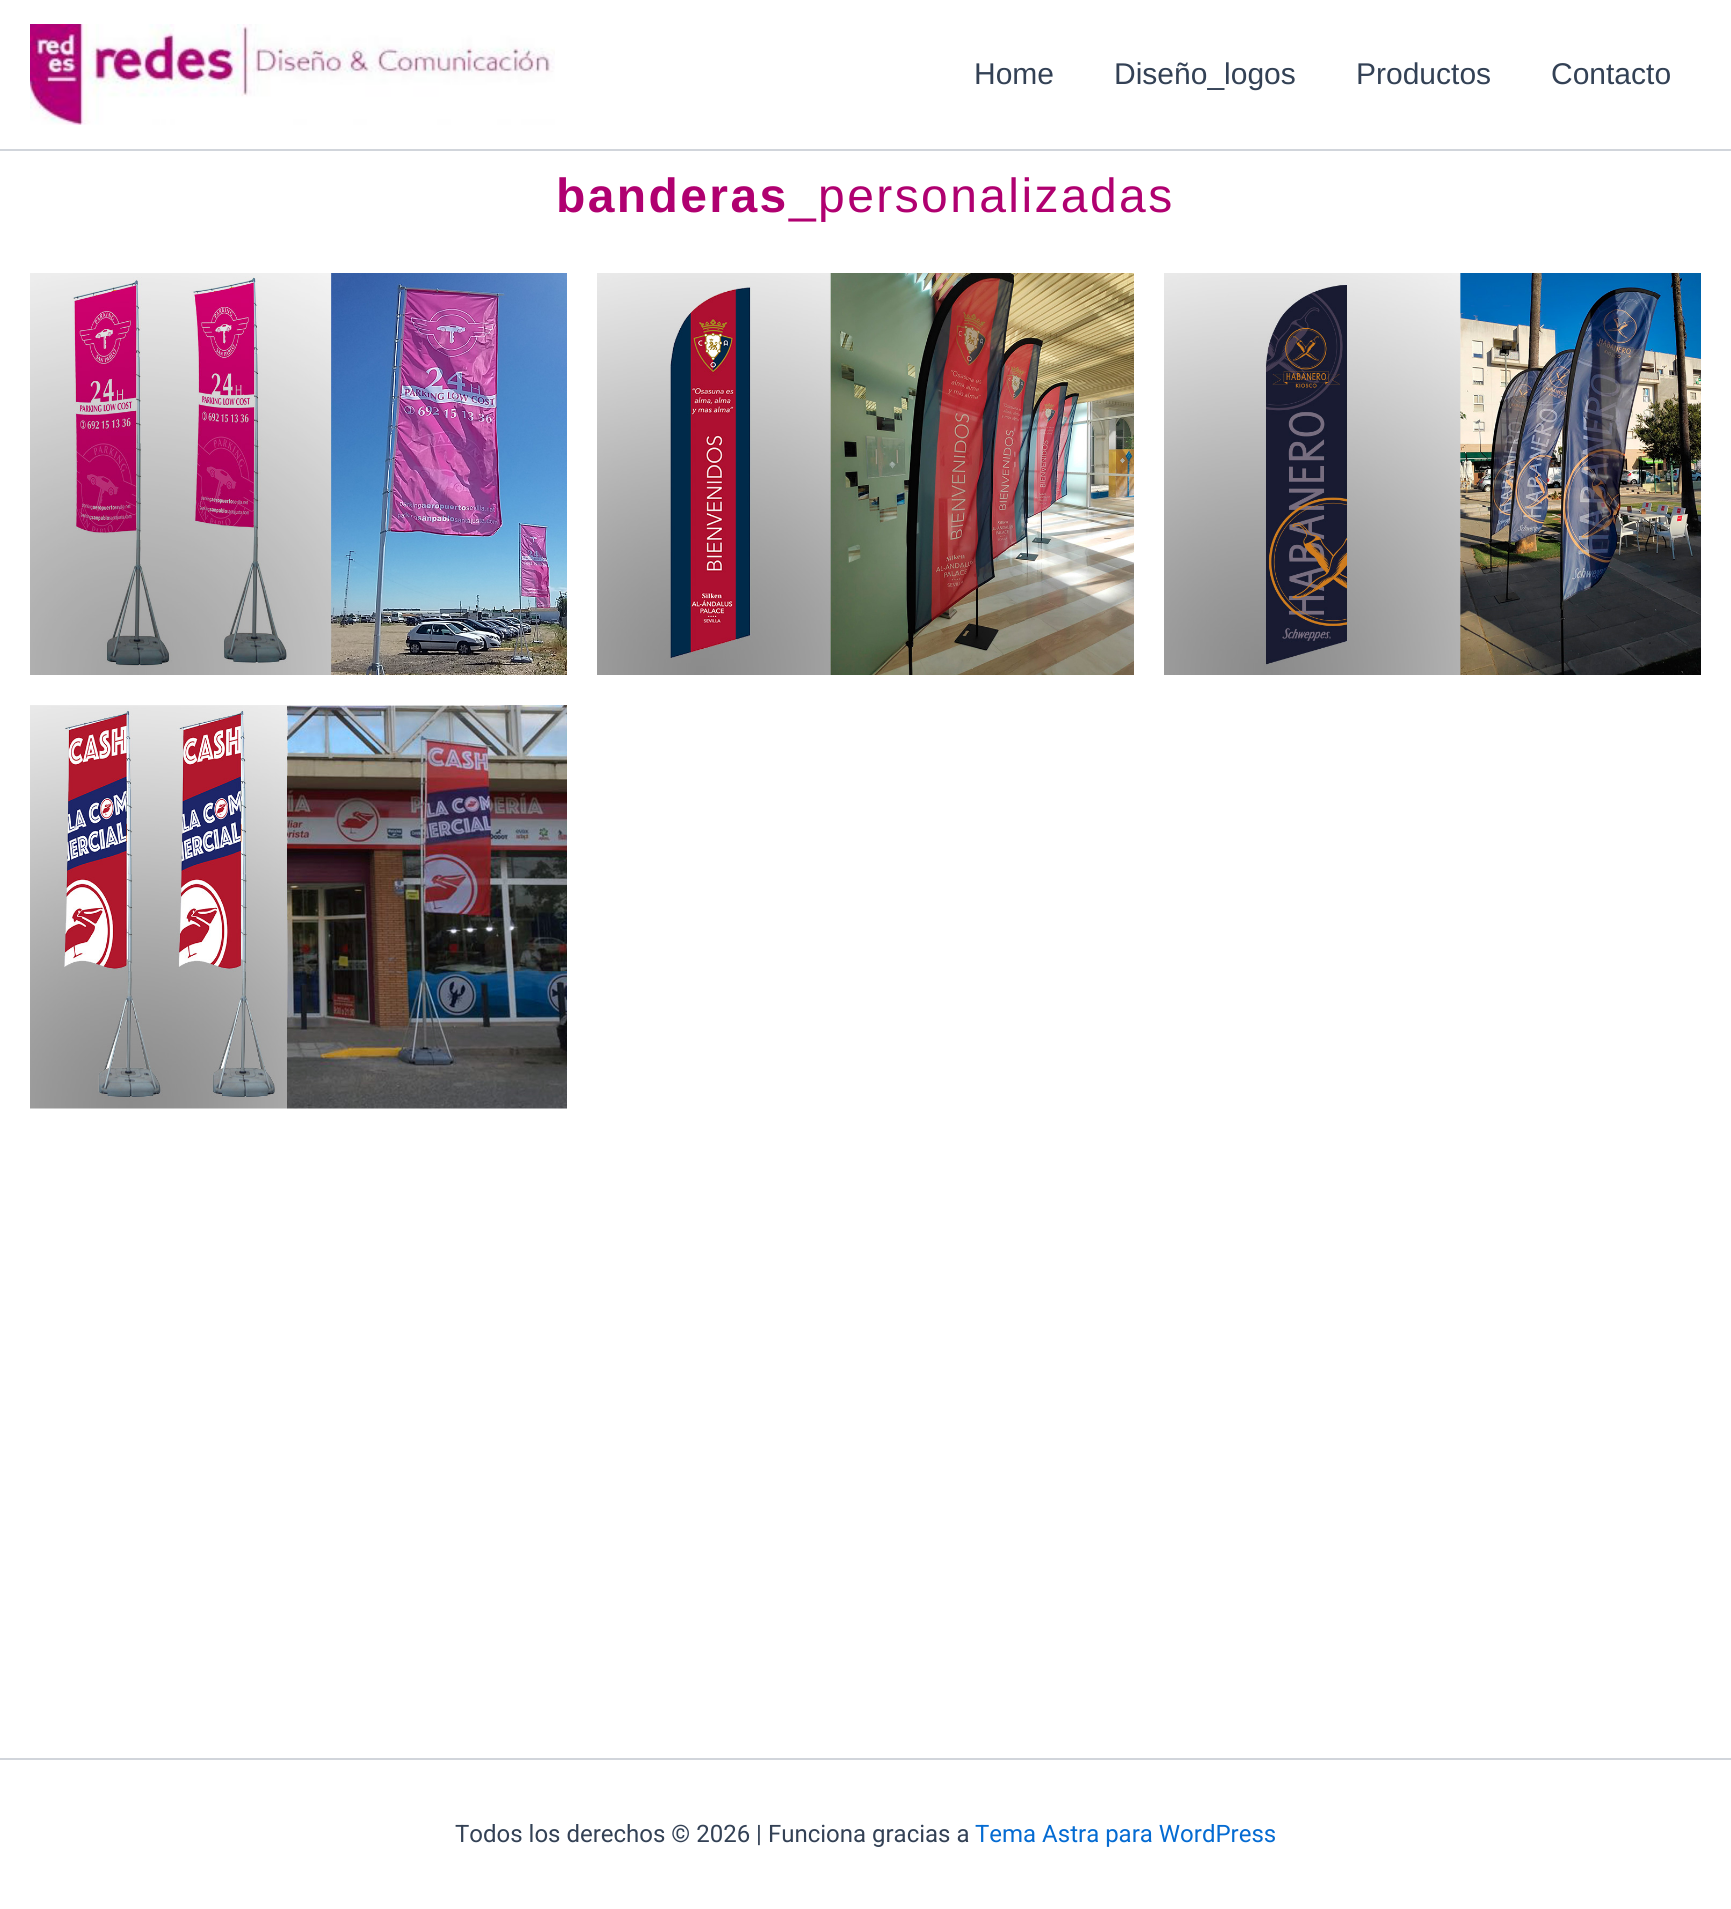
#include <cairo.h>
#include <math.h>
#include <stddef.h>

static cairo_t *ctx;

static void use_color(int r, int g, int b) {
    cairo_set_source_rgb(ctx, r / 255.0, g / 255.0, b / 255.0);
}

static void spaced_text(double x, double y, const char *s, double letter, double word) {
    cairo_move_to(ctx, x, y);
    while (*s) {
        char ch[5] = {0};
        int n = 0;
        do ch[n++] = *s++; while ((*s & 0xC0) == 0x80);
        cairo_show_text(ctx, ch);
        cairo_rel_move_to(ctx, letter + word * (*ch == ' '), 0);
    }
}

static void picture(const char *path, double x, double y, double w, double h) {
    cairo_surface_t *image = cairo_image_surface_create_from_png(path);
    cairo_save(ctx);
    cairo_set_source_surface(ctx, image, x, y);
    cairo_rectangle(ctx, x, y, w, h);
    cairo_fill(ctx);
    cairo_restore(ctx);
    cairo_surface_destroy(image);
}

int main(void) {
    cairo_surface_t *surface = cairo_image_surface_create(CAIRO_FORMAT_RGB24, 1731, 1909);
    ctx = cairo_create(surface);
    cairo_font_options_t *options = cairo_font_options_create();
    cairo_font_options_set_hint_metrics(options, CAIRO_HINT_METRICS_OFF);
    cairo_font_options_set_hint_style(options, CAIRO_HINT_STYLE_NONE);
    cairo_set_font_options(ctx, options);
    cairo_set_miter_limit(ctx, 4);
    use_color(255, 255, 255);
    cairo_paint(ctx);
    use_color(209, 213, 219);
    cairo_rectangle(ctx, 0, 149, 1731, 2);
    cairo_fill(ctx);
    picture("img1.png", 30, 24, 525, 101);
    cairo_select_font_face(ctx, "Liberation Sans", CAIRO_FONT_SLANT_NORMAL, CAIRO_FONT_WEIGHT_NORMAL);
    cairo_set_font_size(ctx, 30);
    use_color(51, 65, 85);
    cairo_move_to(ctx, 974, 84);
    cairo_show_text(ctx, "Home");
    cairo_move_to(ctx, 1114, 84);
    cairo_show_text(ctx, "Diseño_logos");
    cairo_move_to(ctx, 1356, 84);
    cairo_show_text(ctx, "Productos");
    cairo_move_to(ctx, 1551, 84);
    cairo_show_text(ctx, "Contacto");
    cairo_select_font_face(ctx, "Liberation Sans", CAIRO_FONT_SLANT_NORMAL, CAIRO_FONT_WEIGHT_BOLD);
    cairo_set_font_size(ctx, 48);
    use_color(176, 0, 112);
    spaced_text(556, 212, "banderas", 2.4, 0);
    cairo_select_font_face(ctx, "Liberation Sans", CAIRO_FONT_SLANT_NORMAL, CAIRO_FONT_WEIGHT_NORMAL);
    spaced_text(789, 212, "_personalizadas", 2.4, 0);
    picture("img2.png", 30, 273, 537, 402);
    picture("img3.png", 597, 273, 537, 402);
    picture("img4.png", 1164, 273, 537, 402);
    picture("img5.png", 30, 705, 537, 404);
    use_color(209, 213, 219);
    cairo_rectangle(ctx, 0, 1758, 1731, 2);
    cairo_fill(ctx);
    cairo_select_font_face(ctx, "Roboto", CAIRO_FONT_SLANT_NORMAL, CAIRO_FONT_WEIGHT_NORMAL);
    cairo_set_font_size(ctx, 24);
    use_color(51, 65, 85);
    cairo_move_to(ctx, 455, 1842);
    cairo_show_text(ctx, "Todos los derechos © 2026 | Funciona gracias a");
    use_color(4, 107, 210);
    cairo_move_to(ctx, 975, 1842);
    cairo_show_text(ctx, "Tema Astra para WordPress");
    cairo_surface_write_to_png(surface, "result.png");
    cairo_font_options_destroy(options);
    cairo_destroy(ctx);
    cairo_surface_destroy(surface);
    return 0;
}
